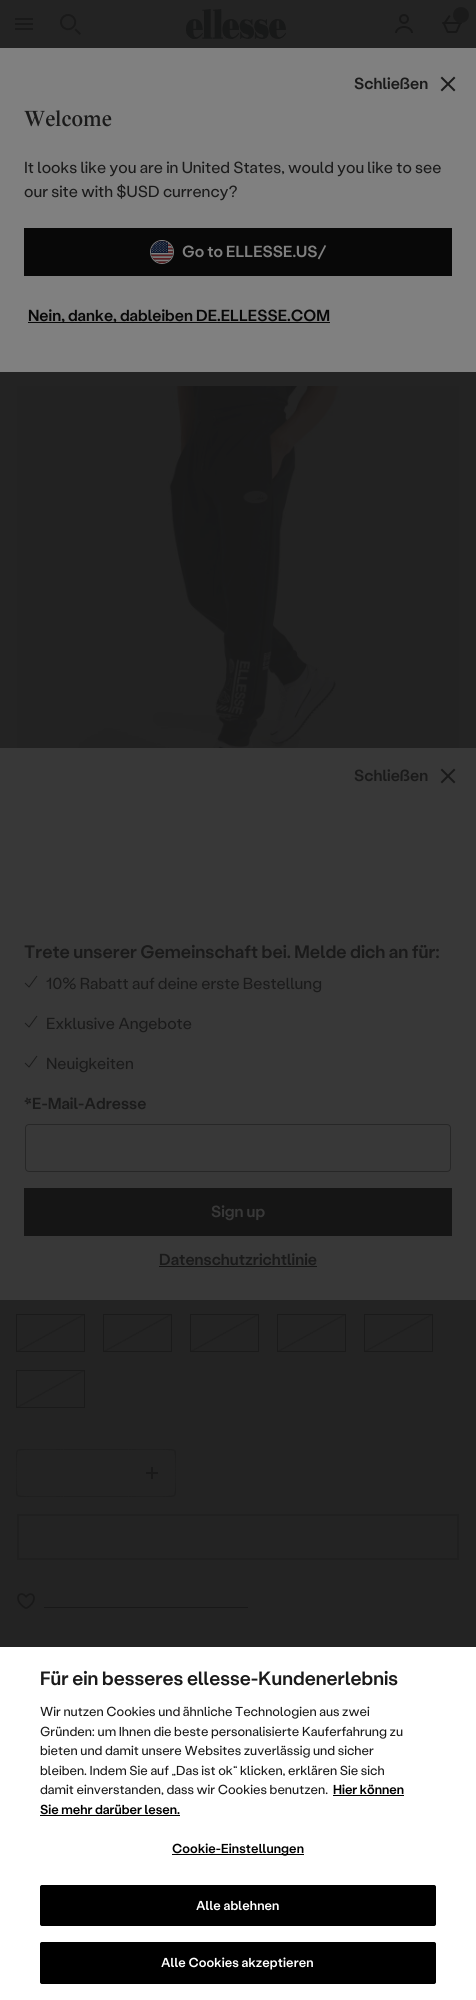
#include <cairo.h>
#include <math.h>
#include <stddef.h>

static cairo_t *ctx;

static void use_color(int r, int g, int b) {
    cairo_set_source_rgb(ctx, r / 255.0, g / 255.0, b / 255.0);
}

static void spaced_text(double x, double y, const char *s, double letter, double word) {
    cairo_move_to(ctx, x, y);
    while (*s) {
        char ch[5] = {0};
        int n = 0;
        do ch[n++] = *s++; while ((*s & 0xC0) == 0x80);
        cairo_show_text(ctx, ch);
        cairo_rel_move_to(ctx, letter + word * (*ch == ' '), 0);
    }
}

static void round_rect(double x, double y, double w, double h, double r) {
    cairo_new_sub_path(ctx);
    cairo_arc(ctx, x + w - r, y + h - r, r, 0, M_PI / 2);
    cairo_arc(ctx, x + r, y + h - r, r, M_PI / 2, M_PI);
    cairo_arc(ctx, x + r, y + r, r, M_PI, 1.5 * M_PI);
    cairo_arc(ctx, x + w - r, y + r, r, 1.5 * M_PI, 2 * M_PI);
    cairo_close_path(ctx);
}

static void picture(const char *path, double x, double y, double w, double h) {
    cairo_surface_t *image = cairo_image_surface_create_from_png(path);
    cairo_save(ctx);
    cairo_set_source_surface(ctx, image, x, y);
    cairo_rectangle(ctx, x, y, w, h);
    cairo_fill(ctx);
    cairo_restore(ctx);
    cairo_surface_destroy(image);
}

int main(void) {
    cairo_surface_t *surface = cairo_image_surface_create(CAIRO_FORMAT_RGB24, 476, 2000);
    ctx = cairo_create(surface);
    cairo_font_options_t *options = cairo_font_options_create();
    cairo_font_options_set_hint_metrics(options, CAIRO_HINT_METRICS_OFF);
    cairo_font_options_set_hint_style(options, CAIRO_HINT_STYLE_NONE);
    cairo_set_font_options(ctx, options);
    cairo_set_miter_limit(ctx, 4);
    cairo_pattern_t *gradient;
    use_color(35, 35, 35);
    cairo_paint(ctx);
    picture("img1.png", 15, 18, 18, 12);
    picture("img2.png", 60, 14, 21, 21);
    picture("img3.png", 186, 9, 100, 30);
    picture("img4.png", 395, 14, 18, 19);
    picture("img5.png", 442, 15, 20, 18);
    use_color(26, 26, 26);
    cairo_arc(ctx, 461, 15, 8, 0, 2 * M_PI);
    cairo_fill(ctx);
    picture("img6.png", 17, 386, 442, 362);
    cairo_rectangle(ctx, 16.5, 1314.5, 68, 37);
    cairo_set_line_width(ctx, 1);
    cairo_stroke(ctx);
    gradient = cairo_pattern_create_linear(66, 1361, 35, 1305);
    cairo_pattern_add_color_stop_rgba(gradient, 0.48, 0.118, 0.118, 0.118, 0);
    cairo_pattern_add_color_stop_rgba(gradient, 0.5, 0.118, 0.118, 0.118, 1);
    cairo_pattern_add_color_stop_rgba(gradient, 0.52, 0.118, 0.118, 0.118, 0);
    cairo_set_source(ctx, gradient);
    cairo_pattern_destroy(gradient);
    cairo_rectangle(ctx, 17, 1315, 67, 36);
    cairo_fill(ctx);
    cairo_rectangle(ctx, 103.5, 1314.5, 68, 37);
    use_color(26, 26, 26);
    cairo_stroke(ctx);
    gradient = cairo_pattern_create_linear(153, 1361, 122, 1305);
    cairo_pattern_add_color_stop_rgba(gradient, 0.48, 0.118, 0.118, 0.118, 0);
    cairo_pattern_add_color_stop_rgba(gradient, 0.5, 0.118, 0.118, 0.118, 1);
    cairo_pattern_add_color_stop_rgba(gradient, 0.52, 0.118, 0.118, 0.118, 0);
    cairo_set_source(ctx, gradient);
    cairo_pattern_destroy(gradient);
    cairo_rectangle(ctx, 104, 1315, 67, 36);
    cairo_fill(ctx);
    cairo_rectangle(ctx, 190.5, 1314.5, 68, 37);
    use_color(26, 26, 26);
    cairo_stroke(ctx);
    gradient = cairo_pattern_create_linear(240, 1361, 209, 1305);
    cairo_pattern_add_color_stop_rgba(gradient, 0.48, 0.118, 0.118, 0.118, 0);
    cairo_pattern_add_color_stop_rgba(gradient, 0.5, 0.118, 0.118, 0.118, 1);
    cairo_pattern_add_color_stop_rgba(gradient, 0.52, 0.118, 0.118, 0.118, 0);
    cairo_set_source(ctx, gradient);
    cairo_pattern_destroy(gradient);
    cairo_rectangle(ctx, 191, 1315, 67, 36);
    cairo_fill(ctx);
    cairo_rectangle(ctx, 277.5, 1314.5, 68, 37);
    use_color(26, 26, 26);
    cairo_stroke(ctx);
    gradient = cairo_pattern_create_linear(327, 1361, 296, 1305);
    cairo_pattern_add_color_stop_rgba(gradient, 0.48, 0.118, 0.118, 0.118, 0);
    cairo_pattern_add_color_stop_rgba(gradient, 0.5, 0.118, 0.118, 0.118, 1);
    cairo_pattern_add_color_stop_rgba(gradient, 0.52, 0.118, 0.118, 0.118, 0);
    cairo_set_source(ctx, gradient);
    cairo_pattern_destroy(gradient);
    cairo_rectangle(ctx, 278, 1315, 67, 36);
    cairo_fill(ctx);
    cairo_rectangle(ctx, 364.5, 1314.5, 68, 37);
    use_color(26, 26, 26);
    cairo_stroke(ctx);
    gradient = cairo_pattern_create_linear(414, 1361, 383, 1305);
    cairo_pattern_add_color_stop_rgba(gradient, 0.48, 0.118, 0.118, 0.118, 0);
    cairo_pattern_add_color_stop_rgba(gradient, 0.5, 0.118, 0.118, 0.118, 1);
    cairo_pattern_add_color_stop_rgba(gradient, 0.52, 0.118, 0.118, 0.118, 0);
    cairo_set_source(ctx, gradient);
    cairo_pattern_destroy(gradient);
    cairo_rectangle(ctx, 365, 1315, 67, 36);
    cairo_fill(ctx);
    cairo_rectangle(ctx, 16.5, 1370.5, 68, 37);
    use_color(26, 26, 26);
    cairo_stroke(ctx);
    gradient = cairo_pattern_create_linear(66, 1417, 35, 1361);
    cairo_pattern_add_color_stop_rgba(gradient, 0.48, 0.118, 0.118, 0.118, 0);
    cairo_pattern_add_color_stop_rgba(gradient, 0.5, 0.118, 0.118, 0.118, 1);
    cairo_pattern_add_color_stop_rgba(gradient, 0.52, 0.118, 0.118, 0.118, 0);
    cairo_set_source(ctx, gradient);
    cairo_pattern_destroy(gradient);
    cairo_rectangle(ctx, 17, 1371, 67, 36);
    cairo_fill(ctx);
    use_color(30, 30, 30);
    cairo_new_path(ctx);
    cairo_move_to(ctx, 20, 1449);
    cairo_line_to(ctx, 17, 1450);
    cairo_line_to(ctx, 18, 1451);
    cairo_curve_to(ctx, 20, 1449, 58, 1450, 63, 1450);
    cairo_line_to(ctx, 64, 1449);
    cairo_close_path(ctx);
    cairo_move_to(ctx, 64, 1497);
    cairo_line_to(ctx, 63, 1496);
    cairo_curve_to(ctx, 58, 1496, 20, 1497, 18, 1495);
    cairo_line_to(ctx, 17, 1496);
    cairo_line_to(ctx, 20, 1497);
    cairo_close_path(ctx);
    cairo_fill(ctx);
    cairo_new_path(ctx);
    cairo_move_to(ctx, 16, 1453);
    cairo_line_to(ctx, 16, 1493);
    cairo_curve_to(ctx, 16, 1494, 16, 1495, 17, 1496);
    cairo_line_to(ctx, 18, 1495);
    cairo_curve_to(ctx, 16, 1494, 16, 1452, 18, 1451);
    cairo_line_to(ctx, 17, 1450);
    cairo_close_path(ctx);
    cairo_fill(ctx);
    cairo_rectangle(ctx, 64, 1449, 64, 1);
    cairo_fill(ctx);
    cairo_rectangle(ctx, 64, 1496, 64, 1);
    cairo_fill(ctx);
    cairo_new_path(ctx);
    cairo_move_to(ctx, 128, 1449);
    cairo_line_to(ctx, 129, 1450);
    cairo_curve_to(ctx, 134, 1450, 172, 1449, 174, 1451);
    cairo_line_to(ctx, 175, 1450);
    cairo_line_to(ctx, 172, 1449);
    cairo_close_path(ctx);
    cairo_fill(ctx);
    cairo_new_path(ctx);
    cairo_move_to(ctx, 176, 1493);
    cairo_line_to(ctx, 176, 1453);
    cairo_curve_to(ctx, 176, 1452, 176, 1451, 175, 1450);
    cairo_line_to(ctx, 174, 1451);
    cairo_curve_to(ctx, 176, 1452, 176, 1494, 174, 1495);
    cairo_line_to(ctx, 175, 1496);
    cairo_close_path(ctx);
    cairo_fill(ctx);
    cairo_new_path(ctx);
    cairo_move_to(ctx, 172, 1497);
    cairo_line_to(ctx, 175, 1496);
    cairo_line_to(ctx, 174, 1495);
    cairo_curve_to(ctx, 172, 1497, 134, 1496, 129, 1496);
    cairo_line_to(ctx, 128, 1497);
    cairo_close_path(ctx);
    cairo_fill(ctx);
    picture("img7.png", 146, 1467, 12, 12);
    cairo_rectangle(ctx, 18, 1515, 440, 44);
    use_color(31, 31, 31);
    cairo_set_line_width(ctx, 2);
    cairo_stroke(ctx);
    picture("img8.png", 17, 1593, 18, 16);
    use_color(24, 24, 24);
    cairo_rectangle(ctx, 44, 1607, 204, 1);
    cairo_fill(ctx);
    use_color(128, 128, 128);
    cairo_rectangle(ctx, 0, 48, 476, 324);
    cairo_fill(ctx);
    cairo_select_font_face(ctx, "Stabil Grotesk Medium", CAIRO_FONT_SLANT_NORMAL, CAIRO_FONT_WEIGHT_NORMAL);
    cairo_set_font_size(ctx, 16);
    use_color(26, 26, 26);
    cairo_move_to(ctx, 354, 89);
    cairo_show_text(ctx, "Schließen");
    picture("img9.png", 440, 76, 16, 16);
    cairo_select_font_face(ctx, "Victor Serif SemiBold", CAIRO_FONT_SLANT_NORMAL, CAIRO_FONT_WEIGHT_NORMAL);
    cairo_set_font_size(ctx, 21);
    cairo_move_to(ctx, 24, 126);
    cairo_show_text(ctx, "Welcome");
    cairo_select_font_face(ctx, "Stabil Grotesk", CAIRO_FONT_SLANT_NORMAL, CAIRO_FONT_WEIGHT_NORMAL);
    cairo_set_font_size(ctx, 16);
    cairo_move_to(ctx, 24, 173);
    cairo_show_text(ctx, "It looks like you are in United States, would you like to see");
    cairo_move_to(ctx, 24, 197);
    cairo_show_text(ctx, "our site with $USD currency?");
    use_color(8, 8, 8);
    cairo_rectangle(ctx, 24, 228, 428, 48);
    cairo_fill(ctx);
    cairo_arc(ctx, 162, 252, 11.5, 0, 2 * M_PI);
    use_color(128, 128, 128);
    cairo_set_line_width(ctx, 1);
    cairo_stroke(ctx);
    picture("img10.png", 151, 241, 22, 22);
    cairo_select_font_face(ctx, "Stabil Grotesk Medium", CAIRO_FONT_SLANT_NORMAL, CAIRO_FONT_WEIGHT_NORMAL);
    cairo_move_to(ctx, 182, 257);
    cairo_show_text(ctx, "Go to ELLESSE.US/");
    use_color(8, 8, 8);
    cairo_rectangle(ctx, 28, 322, 302, 1);
    cairo_fill(ctx);
    cairo_move_to(ctx, 28, 321);
    cairo_show_text(ctx, "Nein, danke, dableiben DE.ELLESSE.COM");
    use_color(56, 56, 56);
    cairo_rectangle(ctx, 0, 748, 476, 552);
    cairo_fill(ctx);
    use_color(26, 26, 26);
    cairo_move_to(ctx, 354, 781);
    cairo_show_text(ctx, "Schließen");
    picture("img11.png", 440, 768, 16, 16);
    cairo_set_font_size(ctx, 18);
    cairo_move_to(ctx, 24, 958);
    cairo_show_text(ctx, "Trete unserer Gemeinschaft bei. Melde dich an für:");
    cairo_new_path(ctx);
    cairo_move_to(ctx, 25, 983);
    cairo_line_to(ctx, 29, 987);
    cairo_line_to(ctx, 37, 976);
    cairo_move_to(ctx, 25, 1023);
    cairo_line_to(ctx, 29, 1027);
    cairo_line_to(ctx, 37, 1016);
    cairo_stroke(ctx);
    cairo_select_font_face(ctx, "Stabil Grotesk", CAIRO_FONT_SLANT_NORMAL, CAIRO_FONT_WEIGHT_NORMAL);
    cairo_set_font_size(ctx, 16);
    cairo_move_to(ctx, 46, 989);
    cairo_show_text(ctx, "10% Rabatt auf deine erste Bestellung");
    cairo_move_to(ctx, 46, 1029);
    cairo_show_text(ctx, "Exklusive Angebote");
    cairo_new_path(ctx);
    cairo_move_to(ctx, 25, 1063);
    cairo_line_to(ctx, 29, 1067);
    cairo_line_to(ctx, 37, 1056);
    cairo_stroke(ctx);
    cairo_move_to(ctx, 46, 1069);
    cairo_show_text(ctx, "Neuigkeiten");
    cairo_select_font_face(ctx, "Stabil Grotesk Medium", CAIRO_FONT_SLANT_NORMAL, CAIRO_FONT_WEIGHT_NORMAL);
    cairo_move_to(ctx, 24, 1109);
    cairo_show_text(ctx, "*");
    cairo_move_to(ctx, 32, 1109);
    cairo_show_text(ctx, "E-Mail-Adresse");
    round_rect(25.5, 1124.5, 425, 47, 3.5);
    use_color(39, 39, 39);
    cairo_stroke(ctx);
    use_color(21, 21, 21);
    cairo_rectangle(ctx, 24, 1188, 428, 48);
    cairo_fill(ctx);
    use_color(56, 56, 56);
    cairo_move_to(ctx, 211, 1217);
    cairo_show_text(ctx, "Sign up");
    use_color(26, 26, 26);
    cairo_move_to(ctx, 159, 1265);
    cairo_show_text(ctx, "Datenschutzrichtlinie");
    use_color(21, 21, 21);
    cairo_rectangle(ctx, 159, 1266, 158, 1);
    cairo_fill(ctx);
    use_color(255, 255, 255);
    cairo_rectangle(ctx, 0, 1647, 476, 353);
    cairo_fill(ctx);
    cairo_set_font_size(ctx, 19.25);
    use_color(26, 26, 26);
    cairo_move_to(ctx, 40, 1685);
    cairo_show_text(ctx, "Für ein besseres ellesse-Kundenerlebnis");
    cairo_select_font_face(ctx, "Stabil Grotesk", CAIRO_FONT_SLANT_NORMAL, CAIRO_FONT_WEIGHT_NORMAL);
    cairo_set_font_size(ctx, 13);
    cairo_move_to(ctx, 40, 1716);
    cairo_show_text(ctx, "Wir nutzen Cookies und ähnliche Technologien aus zwei");
    cairo_move_to(ctx, 40, 1736);
    cairo_show_text(ctx, "Gründen: um Ihnen die beste personalisierte Kauferfahrung zu");
    cairo_move_to(ctx, 40, 1755);
    cairo_show_text(ctx, "bieten und damit unsere Websites zuverlässig und sicher");
    cairo_move_to(ctx, 40, 1775);
    cairo_show_text(ctx, "bleiben. Indem Sie auf „Das ist ok“ klicken, erklären Sie sich");
    cairo_move_to(ctx, 40, 1794);
    cairo_show_text(ctx, "damit einverstanden, dass wir Cookies benutzen.");
    cairo_select_font_face(ctx, "Stabil Grotesk Medium", CAIRO_FONT_SLANT_NORMAL, CAIRO_FONT_WEIGHT_NORMAL);
    use_color(0, 0, 0);
    cairo_move_to(ctx, 333, 1794);
    cairo_show_text(ctx, "Hier können");
    cairo_rectangle(ctx, 333, 1795, 71, 1);
    cairo_fill(ctx);
    cairo_move_to(ctx, 40, 1814);
    cairo_show_text(ctx, "Sie mehr darüber lesen.");
    cairo_rectangle(ctx, 40, 1815, 140, 1);
    cairo_fill(ctx);
    cairo_rectangle(ctx, 172, 1854, 132, 1);
    cairo_fill(ctx);
    spaced_text(172, 1853, "Cookie-Einstellungen", 0.1, 0);
    round_rect(40.5, 1885.5, 395, 40, 1.5);
    cairo_fill_preserve(ctx);
    cairo_stroke(ctx);
    use_color(255, 255, 255);
    spaced_text(196, 1910, "Alle ablehnen", 0.1, 0);
    use_color(0, 0, 0);
    round_rect(40.5, 1942.5, 395, 41, 1.5);
    cairo_fill_preserve(ctx);
    cairo_stroke(ctx);
    use_color(255, 255, 255);
    spaced_text(161, 1967, "Alle Cookies akzeptieren", 0.1, 0);
    cairo_surface_write_to_png(surface, "result.png");
    cairo_font_options_destroy(options);
    cairo_destroy(ctx);
    cairo_surface_destroy(surface);
    return 0;
}
